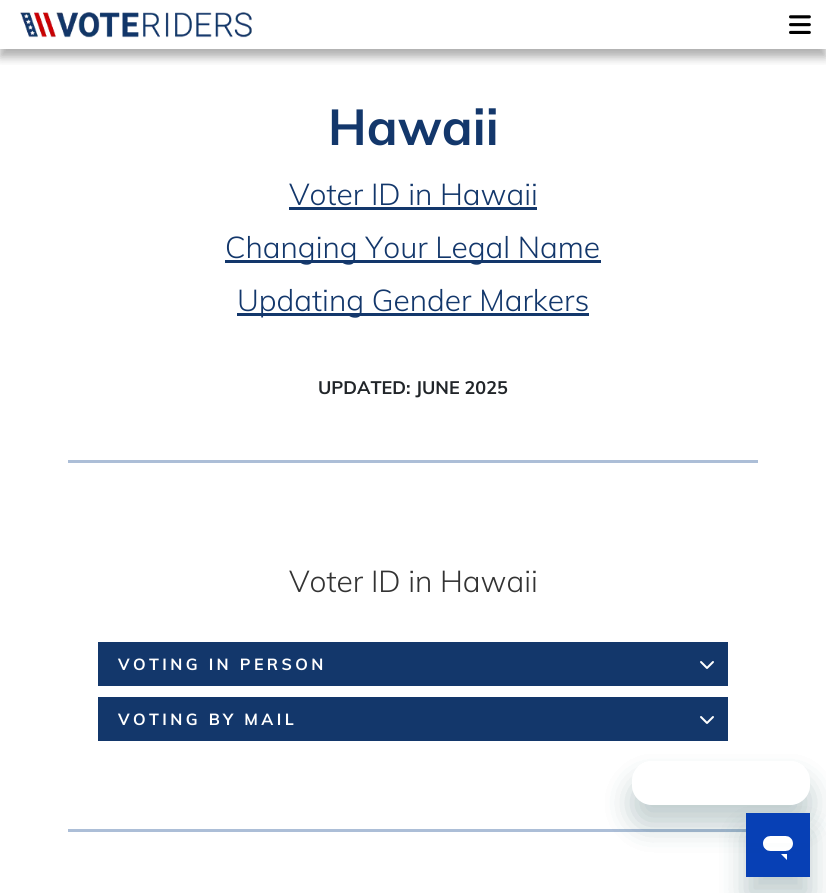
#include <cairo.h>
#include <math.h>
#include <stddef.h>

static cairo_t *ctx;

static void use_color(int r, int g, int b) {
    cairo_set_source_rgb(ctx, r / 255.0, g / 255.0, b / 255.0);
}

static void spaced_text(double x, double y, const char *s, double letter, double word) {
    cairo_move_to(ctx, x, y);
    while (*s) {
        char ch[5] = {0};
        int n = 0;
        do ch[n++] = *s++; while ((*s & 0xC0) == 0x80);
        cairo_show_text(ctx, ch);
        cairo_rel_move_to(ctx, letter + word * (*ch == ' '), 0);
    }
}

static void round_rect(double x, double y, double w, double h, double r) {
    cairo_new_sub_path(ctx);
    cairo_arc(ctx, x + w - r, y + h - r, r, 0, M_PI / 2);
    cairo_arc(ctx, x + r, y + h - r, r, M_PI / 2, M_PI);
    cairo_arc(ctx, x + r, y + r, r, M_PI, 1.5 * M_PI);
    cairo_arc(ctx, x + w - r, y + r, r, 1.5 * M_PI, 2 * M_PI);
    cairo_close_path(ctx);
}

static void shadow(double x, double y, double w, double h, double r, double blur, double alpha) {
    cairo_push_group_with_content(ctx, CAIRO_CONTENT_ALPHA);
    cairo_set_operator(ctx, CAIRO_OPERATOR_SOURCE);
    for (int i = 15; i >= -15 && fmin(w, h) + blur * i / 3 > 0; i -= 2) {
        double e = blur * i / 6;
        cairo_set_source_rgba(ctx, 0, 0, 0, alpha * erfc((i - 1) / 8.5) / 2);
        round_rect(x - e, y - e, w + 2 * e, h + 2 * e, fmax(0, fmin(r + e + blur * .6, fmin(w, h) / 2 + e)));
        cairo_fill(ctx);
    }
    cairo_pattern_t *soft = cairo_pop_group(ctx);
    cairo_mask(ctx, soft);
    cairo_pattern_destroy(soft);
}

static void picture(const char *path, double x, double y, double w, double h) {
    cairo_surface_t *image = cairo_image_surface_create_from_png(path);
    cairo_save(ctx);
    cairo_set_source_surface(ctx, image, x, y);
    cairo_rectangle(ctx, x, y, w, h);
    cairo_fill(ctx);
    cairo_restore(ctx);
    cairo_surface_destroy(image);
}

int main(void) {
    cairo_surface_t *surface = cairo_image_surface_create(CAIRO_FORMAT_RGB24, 826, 893);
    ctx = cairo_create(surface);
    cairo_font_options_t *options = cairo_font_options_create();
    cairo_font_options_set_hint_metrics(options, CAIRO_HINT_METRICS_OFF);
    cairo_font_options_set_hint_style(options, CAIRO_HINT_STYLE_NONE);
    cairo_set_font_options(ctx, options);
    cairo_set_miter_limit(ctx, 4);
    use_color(255, 255, 255);
    cairo_paint(ctx);
    cairo_save(ctx);
    cairo_rectangle(ctx, 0, 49, 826, 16);
    cairo_clip(ctx);
    use_color(0, 0, 0);
    shadow(0, 8, 826, 49, 0, 5, 0.32);
    cairo_restore(ctx);
    picture("img1.png", 20, 12, 232, 26);
    picture("img2.png", 789, 15, 22, 19);
    cairo_select_font_face(ctx, "Muli", CAIRO_FONT_SLANT_NORMAL, CAIRO_FONT_WEIGHT_BOLD);
    cairo_set_font_size(ctx, 50);
    use_color(19, 55, 107);
    cairo_move_to(ctx, 328, 145);
    cairo_show_text(ctx, "Hawaii");
    cairo_select_font_face(ctx, "Muli Light", CAIRO_FONT_SLANT_NORMAL, CAIRO_FONT_WEIGHT_NORMAL);
    cairo_set_font_size(ctx, 30);
    cairo_move_to(ctx, 289, 205);
    cairo_show_text(ctx, "Voter ID in Hawaii");
    cairo_rectangle(ctx, 289, 207, 248, 3);
    cairo_fill(ctx);
    cairo_rectangle(ctx, 225, 260, 376, 3);
    cairo_fill(ctx);
    cairo_move_to(ctx, 225, 258);
    cairo_show_text(ctx, "Changing Your Legal Name");
    cairo_rectangle(ctx, 237, 313, 352, 3);
    cairo_fill(ctx);
    cairo_move_to(ctx, 237, 311);
    cairo_show_text(ctx, "Updating Gender Markers");
    cairo_select_font_face(ctx, "Muli", CAIRO_FONT_SLANT_NORMAL, CAIRO_FONT_WEIGHT_BOLD);
    cairo_set_font_size(ctx, 18);
    use_color(33, 37, 41);
    cairo_move_to(ctx, 318, 394);
    cairo_show_text(ctx, "UPDATED: JUNE 2025");
    use_color(172, 190, 215);
    cairo_rectangle(ctx, 68, 460, 690, 3);
    cairo_fill(ctx);
    cairo_select_font_face(ctx, "Muli Light", CAIRO_FONT_SLANT_NORMAL, CAIRO_FONT_WEIGHT_NORMAL);
    cairo_set_font_size(ctx, 30);
    use_color(51, 51, 51);
    cairo_move_to(ctx, 289, 592);
    cairo_show_text(ctx, "Voter ID in Hawaii");
    use_color(19, 55, 107);
    cairo_rectangle(ctx, 98, 642, 630, 44);
    cairo_fill(ctx);
    cairo_select_font_face(ctx, "Muli", CAIRO_FONT_SLANT_NORMAL, CAIRO_FONT_WEIGHT_BOLD);
    cairo_set_font_size(ctx, 16);
    use_color(255, 255, 255);
    spaced_text(118, 670, "VOTING IN PERSON", 3.4, 0);
    picture("img3.png", 700, 661, 14, 8);
    use_color(19, 55, 107);
    cairo_rectangle(ctx, 98, 697, 630, 44);
    cairo_fill(ctx);
    use_color(255, 255, 255);
    spaced_text(118, 725, "VOTING BY MAIL", 3.4, 0);
    picture("img3.png", 700, 716, 14, 8);
    use_color(172, 190, 215);
    cairo_rectangle(ctx, 68, 829, 678, 3);
    cairo_fill(ctx);
    cairo_save(ctx);
    cairo_set_fill_rule(ctx, CAIRO_FILL_RULE_EVEN_ODD);
    cairo_new_path(ctx);
    cairo_move_to(ctx, 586, 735);
    cairo_line_to(ctx, 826, 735);
    cairo_line_to(ctx, 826, 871);
    cairo_line_to(ctx, 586, 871);
    cairo_close_path(ctx);
    cairo_move_to(ctx, 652, 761);
    cairo_line_to(ctx, 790, 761);
    cairo_curve_to(ctx, 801, 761, 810, 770, 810, 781);
    cairo_line_to(ctx, 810, 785);
    cairo_curve_to(ctx, 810, 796, 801, 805, 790, 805);
    cairo_line_to(ctx, 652, 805);
    cairo_curve_to(ctx, 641, 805, 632, 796, 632, 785);
    cairo_line_to(ctx, 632, 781);
    cairo_curve_to(ctx, 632, 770, 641, 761, 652, 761);
    cairo_close_path(ctx);
    cairo_clip(ctx);
    use_color(23, 73, 77);
    shadow(632, 781, 178, 44, 20, 15, 0.15);
    cairo_restore(ctx);
    use_color(23, 73, 77);
    shadow(746, 833, 64, 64, 0, 15, 0.15);
    picture("img4.png", 746, 843, 64, 34);
    cairo_save(ctx);
    cairo_set_fill_rule(ctx, CAIRO_FILL_RULE_EVEN_ODD);
    cairo_new_path(ctx);
    cairo_move_to(ctx, 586, 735);
    cairo_line_to(ctx, 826, 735);
    cairo_line_to(ctx, 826, 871);
    cairo_line_to(ctx, 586, 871);
    cairo_close_path(ctx);
    cairo_move_to(ctx, 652, 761);
    cairo_line_to(ctx, 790, 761);
    cairo_curve_to(ctx, 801, 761, 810, 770, 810, 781);
    cairo_line_to(ctx, 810, 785);
    cairo_curve_to(ctx, 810, 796, 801, 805, 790, 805);
    cairo_line_to(ctx, 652, 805);
    cairo_curve_to(ctx, 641, 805, 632, 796, 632, 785);
    cairo_line_to(ctx, 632, 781);
    cairo_curve_to(ctx, 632, 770, 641, 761, 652, 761);
    cairo_close_path(ctx);
    cairo_clip(ctx);
    shadow(632, 781, 178, 44, 20, 15, 0.15);
    cairo_restore(ctx);
    cairo_save(ctx);
    cairo_set_fill_rule(ctx, CAIRO_FILL_RULE_EVEN_ODD);
    cairo_new_path(ctx);
    cairo_move_to(ctx, 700, 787);
    cairo_line_to(ctx, 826, 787);
    cairo_line_to(ctx, 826, 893);
    cairo_line_to(ctx, 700, 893);
    cairo_close_path(ctx);
    cairo_move_to(ctx, 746, 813);
    cairo_line_to(ctx, 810, 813);
    cairo_line_to(ctx, 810, 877);
    cairo_line_to(ctx, 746, 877);
    cairo_close_path(ctx);
    cairo_clip(ctx);
    shadow(746, 833, 64, 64, 0, 15, 0.15);
    cairo_restore(ctx);
    picture("img5.png", 746, 813, 64, 30);
    cairo_surface_write_to_png(surface, "result.png");
    cairo_font_options_destroy(options);
    cairo_destroy(ctx);
    cairo_surface_destroy(surface);
    return 0;
}
